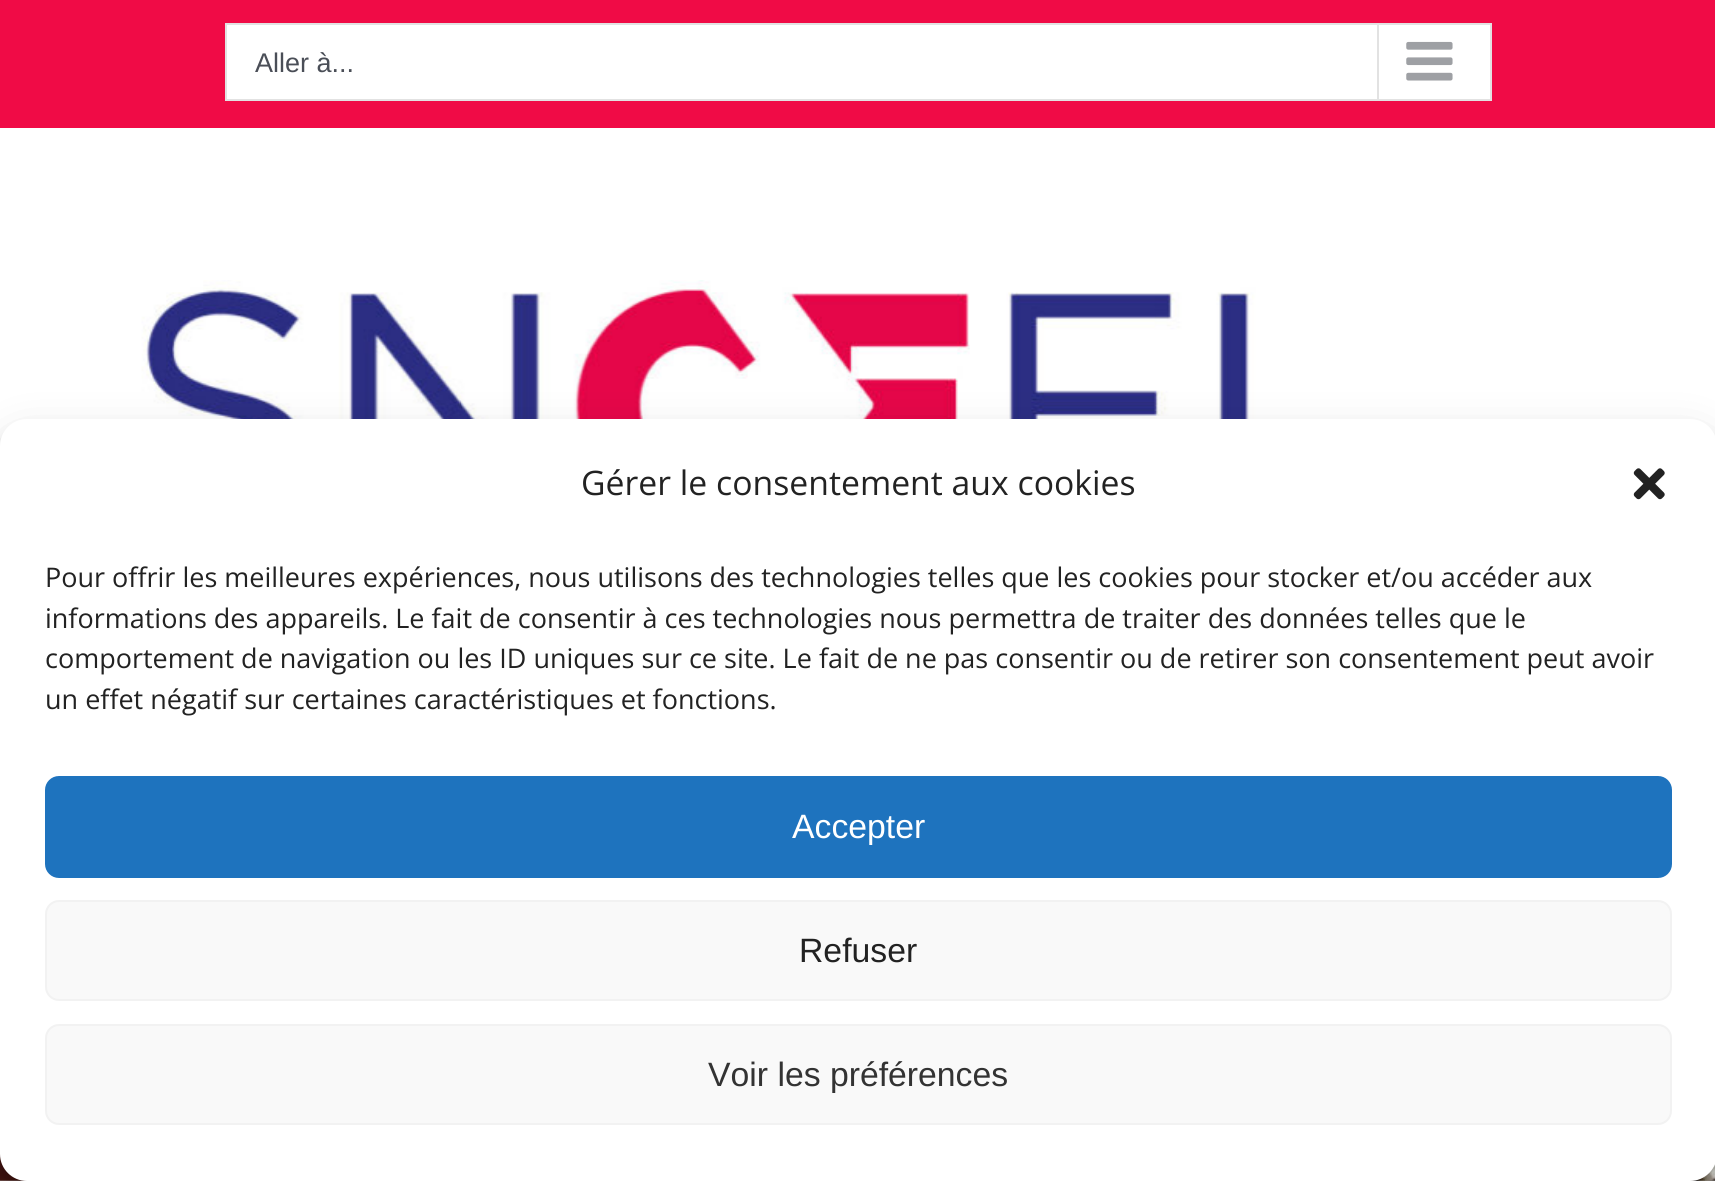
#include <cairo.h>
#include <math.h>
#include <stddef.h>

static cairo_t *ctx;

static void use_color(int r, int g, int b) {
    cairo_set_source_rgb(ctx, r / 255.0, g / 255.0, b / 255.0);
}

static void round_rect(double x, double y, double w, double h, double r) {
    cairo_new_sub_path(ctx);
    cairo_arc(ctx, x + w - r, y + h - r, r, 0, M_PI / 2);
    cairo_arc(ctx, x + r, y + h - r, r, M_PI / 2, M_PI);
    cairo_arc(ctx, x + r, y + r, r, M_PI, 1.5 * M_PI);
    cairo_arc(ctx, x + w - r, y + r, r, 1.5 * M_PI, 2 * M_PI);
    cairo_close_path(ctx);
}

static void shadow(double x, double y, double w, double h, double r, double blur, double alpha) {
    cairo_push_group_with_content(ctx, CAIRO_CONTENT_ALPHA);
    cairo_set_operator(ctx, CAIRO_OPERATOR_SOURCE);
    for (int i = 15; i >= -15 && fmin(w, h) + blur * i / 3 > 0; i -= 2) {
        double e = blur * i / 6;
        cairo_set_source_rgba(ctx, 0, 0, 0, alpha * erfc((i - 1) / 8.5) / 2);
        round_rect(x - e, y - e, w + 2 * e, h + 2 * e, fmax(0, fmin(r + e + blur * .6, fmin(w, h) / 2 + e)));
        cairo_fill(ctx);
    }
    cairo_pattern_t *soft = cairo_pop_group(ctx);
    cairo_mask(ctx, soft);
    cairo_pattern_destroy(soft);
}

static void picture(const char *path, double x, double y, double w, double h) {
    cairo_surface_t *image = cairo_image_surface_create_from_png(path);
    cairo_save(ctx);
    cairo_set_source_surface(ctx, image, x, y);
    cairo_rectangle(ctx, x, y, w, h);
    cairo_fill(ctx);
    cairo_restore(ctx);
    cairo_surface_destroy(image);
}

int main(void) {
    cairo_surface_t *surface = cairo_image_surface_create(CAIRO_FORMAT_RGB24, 1715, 1181);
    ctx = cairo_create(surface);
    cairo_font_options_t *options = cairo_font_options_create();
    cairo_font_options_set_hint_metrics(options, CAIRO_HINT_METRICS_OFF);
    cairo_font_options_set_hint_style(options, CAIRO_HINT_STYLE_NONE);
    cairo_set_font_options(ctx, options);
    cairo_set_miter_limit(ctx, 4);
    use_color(255, 255, 255);
    cairo_paint(ctx);
    use_color(240, 11, 70);
    cairo_rectangle(ctx, 0, 0, 1715, 128);
    cairo_fill(ctx);
    use_color(255, 255, 255);
    cairo_rectangle(ctx, 226, 24, 1265, 76);
    cairo_fill_preserve(ctx);
    use_color(226, 226, 226);
    cairo_stroke(ctx);
    cairo_select_font_face(ctx, "Liberation Sans", CAIRO_FONT_SLANT_NORMAL, CAIRO_FONT_WEIGHT_NORMAL);
    cairo_set_font_size(ctx, 27);
    use_color(74, 78, 87);
    cairo_move_to(ctx, 255, 72);
    cairo_show_text(ctx, "Aller à...");
    use_color(226, 226, 226);
    cairo_rectangle(ctx, 1377, 25, 2, 74);
    cairo_fill(ctx);
    picture("img1.png", 1406, 41, 47, 40);
    picture("img2.png", 129, 280, 1459, 139);
    picture("img3.png", 0, 1154, 1715, 27);
    use_color(0, 0, 0);
    shadow(0, 432, 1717, 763, 27, 7, 0.23);
    shadow(0, 441, 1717, 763, 27, 22.5, 0.19);
    use_color(255, 255, 255);
    round_rect(0, 419, 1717, 762, 27);
    cairo_fill(ctx);
    cairo_select_font_face(ctx, "Open Sans", CAIRO_FONT_SLANT_NORMAL, CAIRO_FONT_WEIGHT_NORMAL);
    cairo_set_font_size(ctx, 33.75);
    use_color(34, 34, 34);
    cairo_move_to(ctx, 581, 495);
    cairo_show_text(ctx, "Gérer le consentement aux cookies");
    picture("img4.png", 1633, 468, 32, 32);
    cairo_set_font_size(ctx, 27);
    cairo_move_to(ctx, 45, 587);
    cairo_show_text(ctx, "Pour offrir les meilleures expériences, nous utilisons des technologies telles que les cookies pour stocker et/ou accéder aux");
    cairo_move_to(ctx, 45, 628);
    cairo_show_text(ctx, "informations des appareils. Le fait de consentir à ces technologies nous permettra de traiter des données telles que le");
    cairo_move_to(ctx, 45, 668);
    cairo_show_text(ctx, "comportement de navigation ou les ID uniques sur ce site. Le fait de ne pas consentir ou de retirer son consentement peut avoir");
    cairo_move_to(ctx, 45, 709);
    cairo_show_text(ctx, "un effet négatif sur certaines caractéristiques et fonctions.");
    use_color(30, 115, 190);
    round_rect(46, 777, 1625, 100, 13);
    cairo_fill_preserve(ctx);
    cairo_stroke(ctx);
    cairo_select_font_face(ctx, "Liberation Sans", CAIRO_FONT_SLANT_NORMAL, CAIRO_FONT_WEIGHT_NORMAL);
    cairo_set_font_size(ctx, 33.75);
    use_color(255, 255, 255);
    cairo_move_to(ctx, 792, 838);
    cairo_show_text(ctx, "Accepter");
    use_color(249, 249, 249);
    round_rect(46, 901, 1625, 99, 13);
    cairo_fill_preserve(ctx);
    use_color(242, 242, 242);
    cairo_stroke(ctx);
    use_color(34, 34, 34);
    cairo_move_to(ctx, 799, 962);
    cairo_show_text(ctx, "Refuser");
    use_color(249, 249, 249);
    round_rect(46, 1025, 1625, 99, 13);
    cairo_fill_preserve(ctx);
    use_color(242, 242, 242);
    cairo_stroke(ctx);
    use_color(51, 51, 51);
    cairo_move_to(ctx, 708, 1086);
    cairo_show_text(ctx, "Voir les préférences");
    cairo_surface_write_to_png(surface, "result.png");
    cairo_font_options_destroy(options);
    cairo_destroy(ctx);
    cairo_surface_destroy(surface);
    return 0;
}
